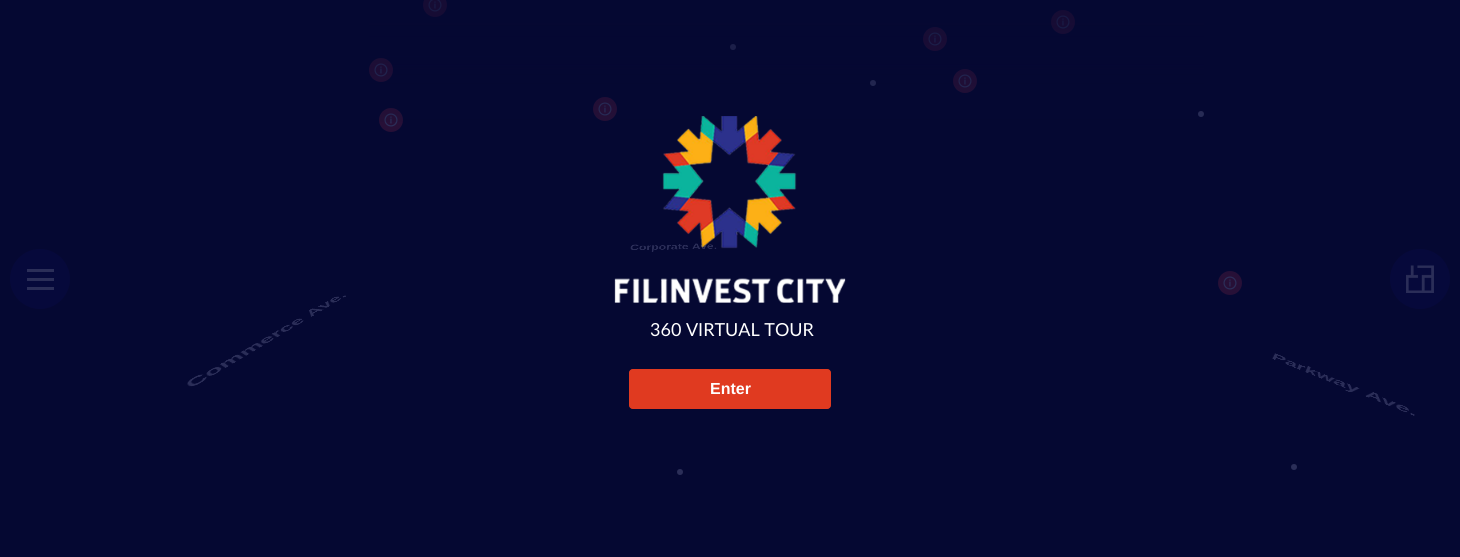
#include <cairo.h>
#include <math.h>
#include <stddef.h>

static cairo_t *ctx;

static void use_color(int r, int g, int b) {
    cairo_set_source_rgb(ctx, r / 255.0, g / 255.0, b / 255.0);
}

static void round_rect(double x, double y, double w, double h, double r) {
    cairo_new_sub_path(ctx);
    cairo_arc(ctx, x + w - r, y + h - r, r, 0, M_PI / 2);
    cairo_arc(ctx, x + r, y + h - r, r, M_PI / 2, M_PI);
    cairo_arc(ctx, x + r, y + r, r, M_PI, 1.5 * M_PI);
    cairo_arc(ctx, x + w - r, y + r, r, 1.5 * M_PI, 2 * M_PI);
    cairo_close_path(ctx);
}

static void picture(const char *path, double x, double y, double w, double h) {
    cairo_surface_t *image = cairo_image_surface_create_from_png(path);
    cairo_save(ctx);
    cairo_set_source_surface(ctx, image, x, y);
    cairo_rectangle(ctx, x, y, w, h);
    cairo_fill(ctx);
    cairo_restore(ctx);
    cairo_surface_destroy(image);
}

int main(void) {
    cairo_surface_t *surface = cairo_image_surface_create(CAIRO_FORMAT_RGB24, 1460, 557);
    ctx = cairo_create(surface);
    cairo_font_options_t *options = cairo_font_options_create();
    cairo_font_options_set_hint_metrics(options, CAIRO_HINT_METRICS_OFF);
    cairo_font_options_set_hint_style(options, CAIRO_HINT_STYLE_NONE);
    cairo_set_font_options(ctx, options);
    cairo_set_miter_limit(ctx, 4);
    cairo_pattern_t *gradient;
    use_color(5, 8, 50);
    cairo_paint(ctx);
    picture("img1.png", 187, 243, 1228, 173);
    picture("img2.png", 423, 0, 24, 17);
    picture("img3.png", 1051, 10, 24, 24);
    use_color(43, 46, 88);
    cairo_arc(ctx, 733, 47, 3, 0, 2 * M_PI);
    cairo_fill(ctx);
    picture("img3.png", 923, 27, 24, 24);
    picture("img3.png", 369, 58, 24, 24);
    cairo_arc(ctx, 873, 83, 3, 0, 2 * M_PI);
    cairo_fill(ctx);
    picture("img3.png", 953, 69, 24, 24);
    picture("img3.png", 379, 108, 24, 24);
    picture("img3.png", 593, 97, 24, 24);
    cairo_arc(ctx, 1201, 114, 3, 0, 2 * M_PI);
    cairo_fill(ctx);
    picture("img3.png", 1218, 271, 24, 24);
    cairo_arc(ctx, 1294, 467, 3, 0, 2 * M_PI);
    cairo_fill(ctx);
    cairo_arc(ctx, 680, 472, 3, 0, 2 * M_PI);
    cairo_fill(ctx);
    gradient = cairo_pattern_create_linear(731, -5, 731, 135);
    cairo_pattern_add_color_stop_rgba(gradient, 0.2, 0.02, 0.031, 0.196, 0.5);
    cairo_pattern_add_color_stop_rgba(gradient, 1, 0.02, 0.031, 0.196, 0);
    cairo_set_source(ctx, gradient);
    cairo_pattern_destroy(gradient);
    cairo_rectangle(ctx, 369, 0, 835, 122);
    cairo_fill(ctx);
    use_color(6, 9, 59);
    cairo_arc(ctx, 40, 279, 30, 0, 2 * M_PI);
    cairo_fill(ctx);
    use_color(43, 46, 88);
    cairo_rectangle(ctx, 27, 269, 27, 3);
    cairo_fill(ctx);
    cairo_rectangle(ctx, 27, 278, 27, 3);
    cairo_fill(ctx);
    cairo_rectangle(ctx, 27, 287, 27, 3);
    cairo_fill(ctx);
    use_color(6, 9, 59);
    cairo_arc(ctx, 1420, 279, 30, 0, 2 * M_PI);
    cairo_fill(ctx);
    picture("img4.png", 1406, 265, 28, 28);
    picture("img5.png", 614, 116, 232, 187);
    cairo_select_font_face(ctx, "Lato", CAIRO_FONT_SLANT_NORMAL, CAIRO_FONT_WEIGHT_NORMAL);
    cairo_set_font_size(ctx, 18);
    use_color(255, 255, 255);
    cairo_move_to(ctx, 650, 336);
    cairo_show_text(ctx, "360 VIRTUAL TOUR");
    use_color(224, 58, 32);
    round_rect(629, 369, 202, 40, 4);
    cairo_fill(ctx);
    round_rect(629.5, 369.5, 201, 39, 3.5);
    cairo_set_source_rgba(ctx, 0.878, 0.227, 0.125, 0.5);
    cairo_set_line_width(ctx, 1);
    cairo_stroke(ctx);
    cairo_select_font_face(ctx, "Liberation Sans", CAIRO_FONT_SLANT_NORMAL, CAIRO_FONT_WEIGHT_BOLD);
    cairo_set_font_size(ctx, 16);
    use_color(255, 255, 255);
    cairo_move_to(ctx, 710, 394);
    cairo_show_text(ctx, "Enter");
    cairo_surface_write_to_png(surface, "result.png");
    cairo_font_options_destroy(options);
    cairo_destroy(ctx);
    cairo_surface_destroy(surface);
    return 0;
}
